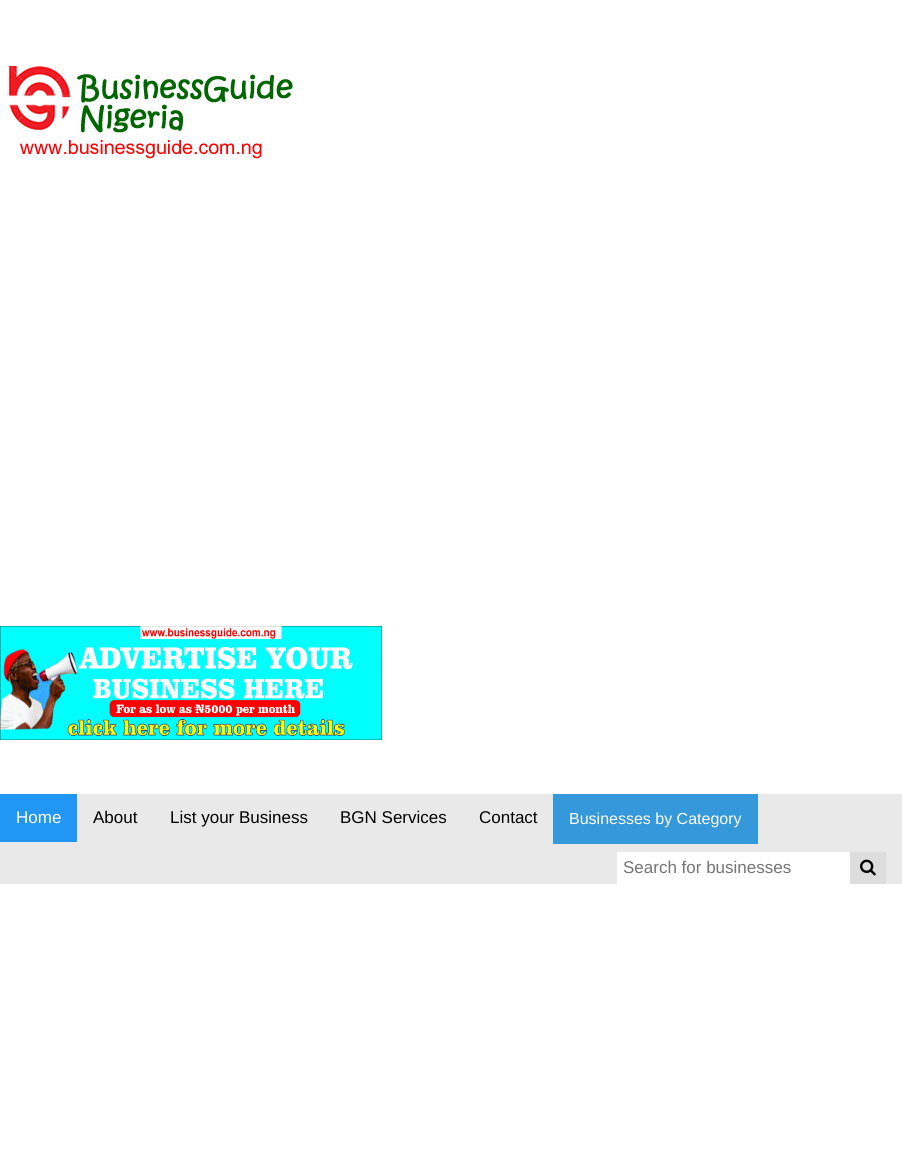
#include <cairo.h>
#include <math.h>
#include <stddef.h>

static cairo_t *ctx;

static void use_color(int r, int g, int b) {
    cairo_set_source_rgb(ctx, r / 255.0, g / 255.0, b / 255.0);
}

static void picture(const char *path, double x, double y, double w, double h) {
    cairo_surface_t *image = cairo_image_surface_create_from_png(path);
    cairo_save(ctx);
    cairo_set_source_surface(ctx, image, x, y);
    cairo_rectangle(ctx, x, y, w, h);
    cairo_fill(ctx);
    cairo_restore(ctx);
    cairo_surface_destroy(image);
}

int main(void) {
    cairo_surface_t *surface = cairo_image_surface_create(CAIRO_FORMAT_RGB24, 902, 1173);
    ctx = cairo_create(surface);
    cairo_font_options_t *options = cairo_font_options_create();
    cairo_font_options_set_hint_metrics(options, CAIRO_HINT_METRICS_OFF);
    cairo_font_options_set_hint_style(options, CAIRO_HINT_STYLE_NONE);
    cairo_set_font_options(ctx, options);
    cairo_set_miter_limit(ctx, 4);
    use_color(255, 255, 255);
    cairo_paint(ctx);
    picture("img1.png", 6, 66, 287, 93);
    picture("img2.png", 0, 626, 382, 114);
    use_color(233, 233, 233);
    cairo_rectangle(ctx, 0, 794, 902, 90);
    cairo_fill(ctx);
    use_color(33, 150, 243);
    cairo_rectangle(ctx, 0, 794, 77, 48);
    cairo_fill(ctx);
    cairo_select_font_face(ctx, "Liberation Sans", CAIRO_FONT_SLANT_NORMAL, CAIRO_FONT_WEIGHT_NORMAL);
    cairo_set_font_size(ctx, 17);
    use_color(255, 255, 255);
    cairo_move_to(ctx, 16, 823);
    cairo_show_text(ctx, "Home");
    use_color(0, 0, 0);
    cairo_move_to(ctx, 93, 823);
    cairo_show_text(ctx, "About");
    cairo_move_to(ctx, 170, 823);
    cairo_show_text(ctx, "List your Business");
    cairo_move_to(ctx, 340, 823);
    cairo_show_text(ctx, "BGN Services");
    cairo_move_to(ctx, 479, 823);
    cairo_show_text(ctx, "Contact");
    use_color(52, 152, 219);
    cairo_rectangle(ctx, 553, 794, 205, 50);
    cairo_fill(ctx);
    cairo_set_font_size(ctx, 16);
    use_color(255, 255, 255);
    cairo_move_to(ctx, 569, 824);
    cairo_show_text(ctx, "Businesses by Category");
    cairo_rectangle(ctx, 617, 852, 233, 32);
    cairo_fill(ctx);
    cairo_set_font_size(ctx, 17);
    use_color(117, 117, 117);
    cairo_move_to(ctx, 623, 873);
    cairo_show_text(ctx, "Search for businesses");
    use_color(221, 221, 221);
    cairo_rectangle(ctx, 850, 852, 36, 32);
    cairo_fill(ctx);
    picture("img3.png", 860, 859, 16, 17);
    cairo_surface_write_to_png(surface, "result.png");
    cairo_font_options_destroy(options);
    cairo_destroy(ctx);
    cairo_surface_destroy(surface);
    return 0;
}
